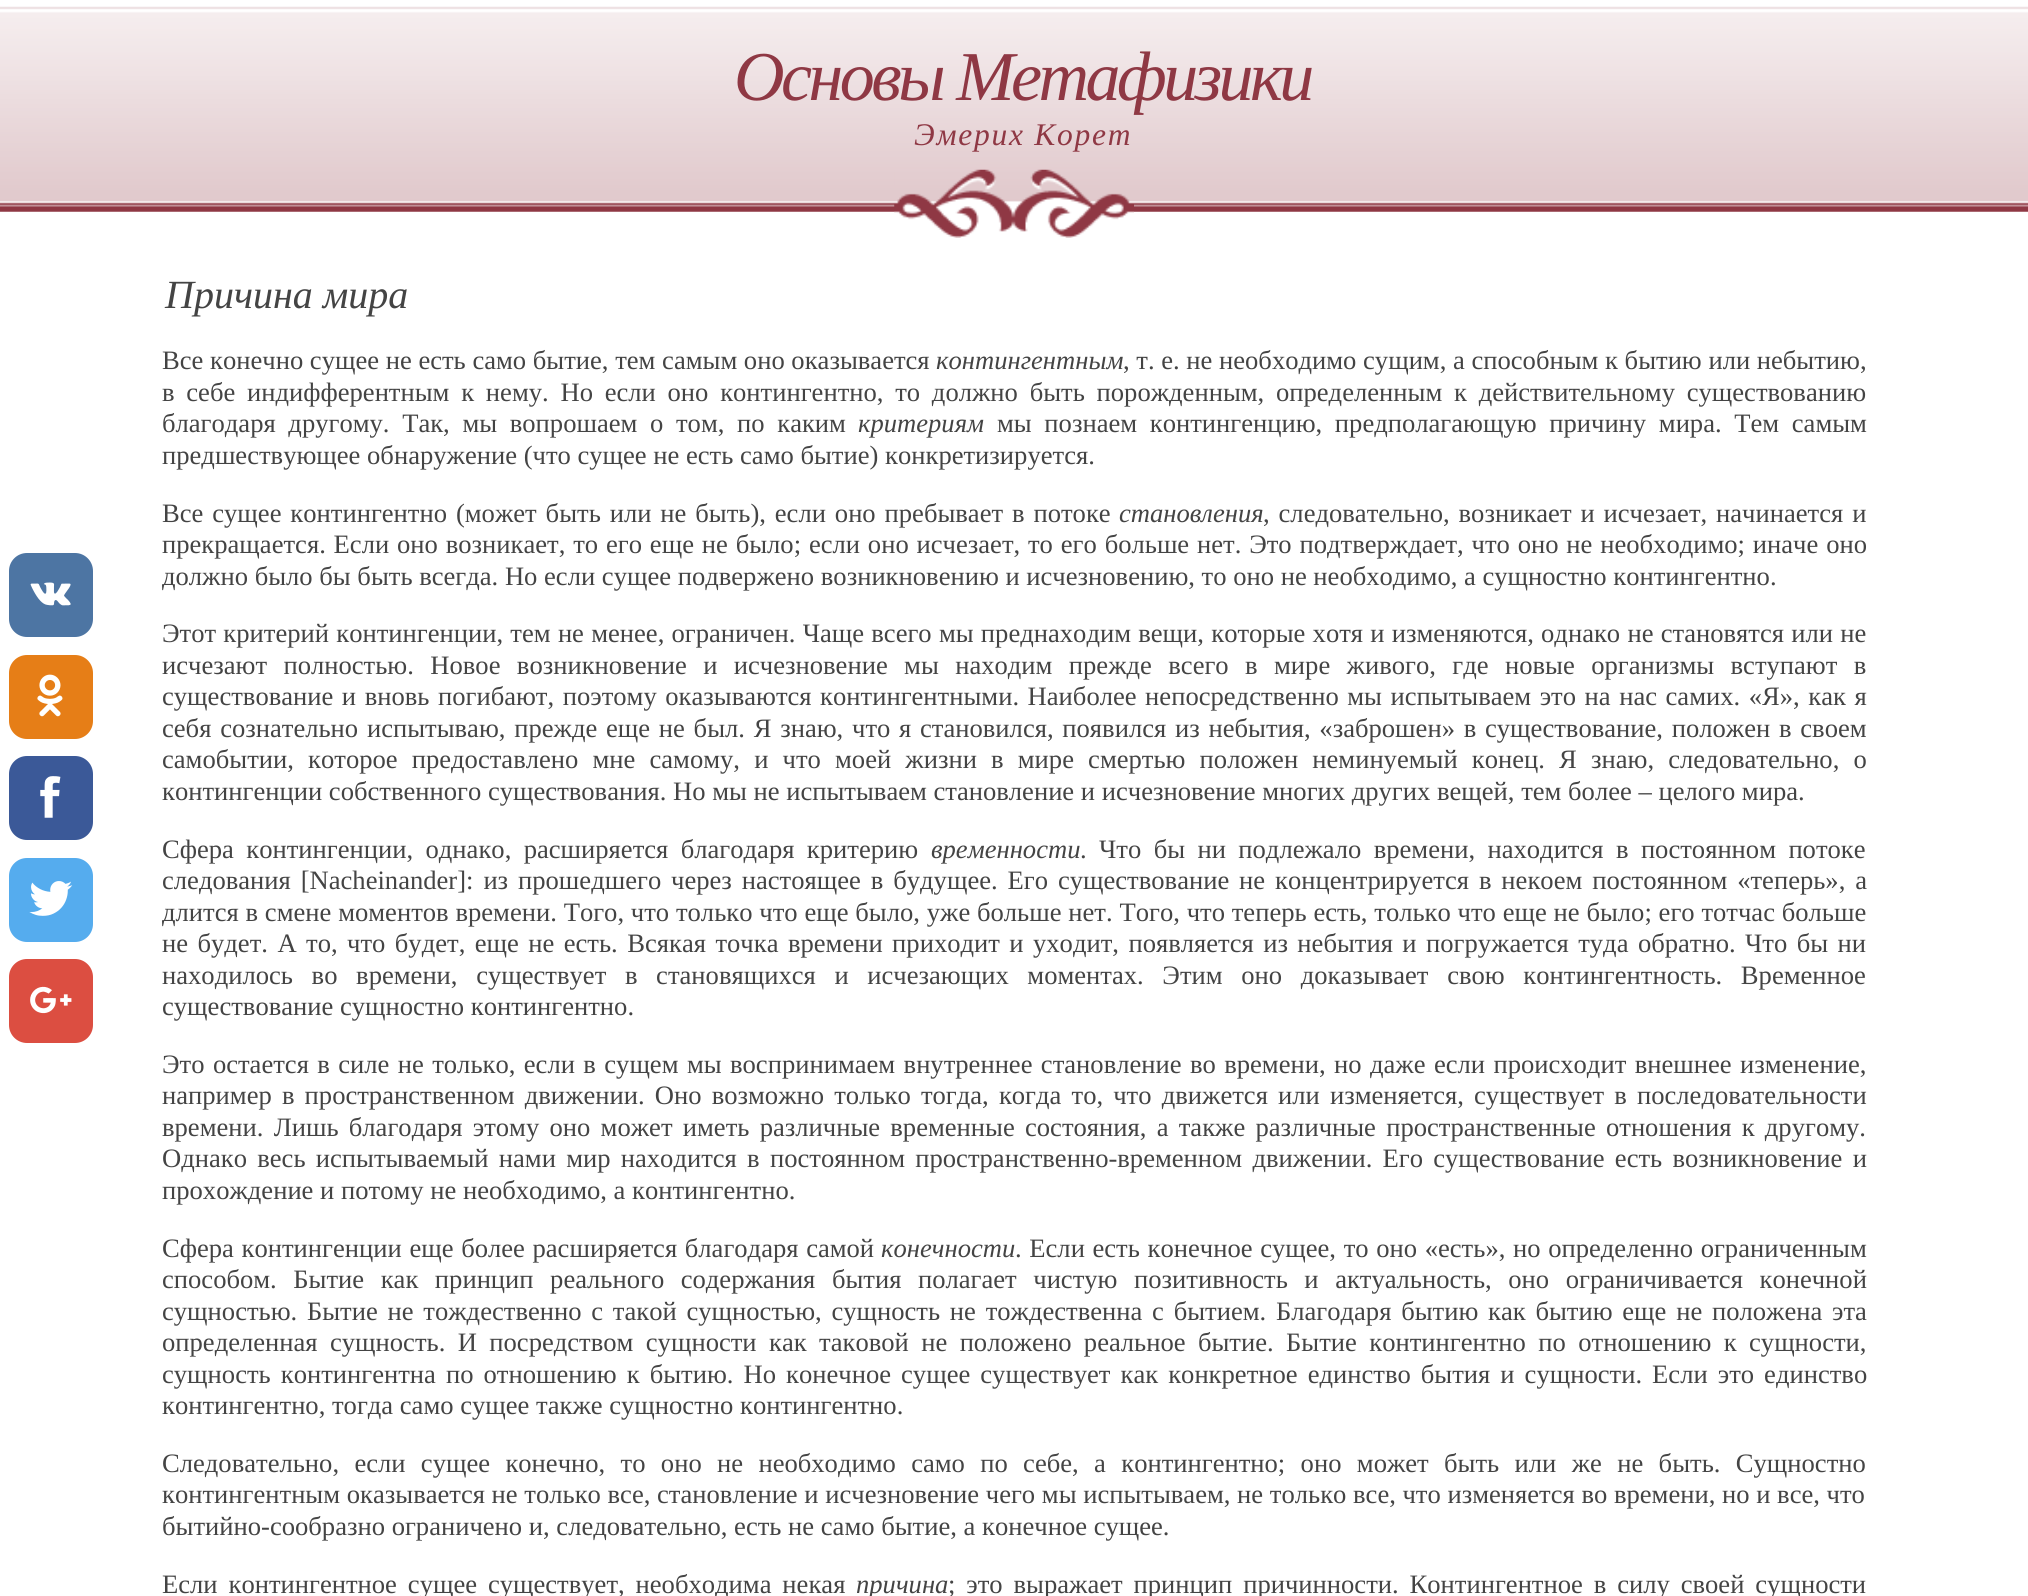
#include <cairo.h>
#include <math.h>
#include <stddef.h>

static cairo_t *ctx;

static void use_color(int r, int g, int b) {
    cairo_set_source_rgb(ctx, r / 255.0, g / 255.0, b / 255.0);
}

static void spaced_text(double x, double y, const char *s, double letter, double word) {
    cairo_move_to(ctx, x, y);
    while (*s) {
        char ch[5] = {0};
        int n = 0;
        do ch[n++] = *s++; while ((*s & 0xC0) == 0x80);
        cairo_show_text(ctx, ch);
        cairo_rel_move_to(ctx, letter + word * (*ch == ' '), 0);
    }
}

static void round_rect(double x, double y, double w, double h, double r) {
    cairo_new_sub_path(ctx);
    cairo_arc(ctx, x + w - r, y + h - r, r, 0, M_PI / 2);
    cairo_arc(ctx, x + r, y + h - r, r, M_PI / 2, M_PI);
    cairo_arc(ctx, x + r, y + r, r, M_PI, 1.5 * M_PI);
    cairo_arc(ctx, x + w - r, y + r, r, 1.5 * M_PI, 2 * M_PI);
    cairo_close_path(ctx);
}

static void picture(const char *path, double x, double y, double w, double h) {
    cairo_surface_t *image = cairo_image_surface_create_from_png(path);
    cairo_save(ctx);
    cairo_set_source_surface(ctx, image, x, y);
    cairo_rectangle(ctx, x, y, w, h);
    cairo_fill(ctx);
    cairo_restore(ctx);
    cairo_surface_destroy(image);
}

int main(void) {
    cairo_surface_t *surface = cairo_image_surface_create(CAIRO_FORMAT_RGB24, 2028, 1596);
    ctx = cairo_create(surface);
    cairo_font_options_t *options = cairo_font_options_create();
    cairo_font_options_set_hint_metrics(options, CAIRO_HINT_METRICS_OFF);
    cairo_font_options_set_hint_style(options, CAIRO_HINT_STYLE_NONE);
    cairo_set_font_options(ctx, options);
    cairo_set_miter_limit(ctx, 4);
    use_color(255, 255, 255);
    cairo_paint(ctx);
    picture("img1.png", 0, 6, 2028, 206);
    picture("img2.png", 894, 169, 240, 69);
    cairo_select_font_face(ctx, "Liberation Serif", CAIRO_FONT_SLANT_ITALIC, CAIRO_FONT_WEIGHT_NORMAL);
    cairo_set_font_size(ctx, 70);
    use_color(143, 56, 68);
    spaced_text(734, 100, "Основы Метафизики", -3.5, 0);
    cairo_set_font_size(ctx, 31.5);
    spaced_text(914, 145, "Эмерих Корет", 1.75, 0);
    use_color(77, 117, 163);
    round_rect(9, 553, 84, 84, 18);
    cairo_fill(ctx);
    picture("img3.png", 30, 582, 41, 24);
    use_color(230, 126, 23);
    round_rect(9, 655, 84, 84, 18);
    cairo_fill(ctx);
    picture("img4.png", 37, 674, 26, 43);
    use_color(59, 89, 152);
    round_rect(9, 756, 84, 84, 18);
    cairo_fill(ctx);
    picture("img5.png", 40, 776, 21, 42);
    use_color(85, 172, 238);
    round_rect(9, 858, 84, 84, 18);
    cairo_fill(ctx);
    picture("img6.png", 29, 881, 44, 35);
    use_color(220, 78, 65);
    round_rect(9, 959, 84, 84, 18);
    cairo_fill(ctx);
    picture("img7.png", 30, 986, 42, 28);
    cairo_set_font_size(ctx, 40);
    use_color(68, 68, 68);
    cairo_move_to(ctx, 165, 308);
    cairo_show_text(ctx, "Причина мира");
    cairo_select_font_face(ctx, "Liberation Serif", CAIRO_FONT_SLANT_NORMAL, CAIRO_FONT_WEIGHT_NORMAL);
    cairo_set_font_size(ctx, 26.6);
    cairo_move_to(ctx, 162, 369);
    cairo_show_text(ctx, "Все конечно сущее не есть само бытие, тем самым оно оказывается");
    cairo_select_font_face(ctx, "Liberation Serif", CAIRO_FONT_SLANT_ITALIC, CAIRO_FONT_WEIGHT_NORMAL);
    cairo_move_to(ctx, 936, 369);
    cairo_show_text(ctx, "контингентным");
    cairo_select_font_face(ctx, "Liberation Serif", CAIRO_FONT_SLANT_NORMAL, CAIRO_FONT_WEIGHT_NORMAL);
    cairo_move_to(ctx, 1123, 369);
    cairo_show_text(ctx, ", т. е. не необходимо сущим, а способным к бытию или небытию,");
    spaced_text(162, 401, "в себе индифферентным к нему. Но если оно контингентно, то должно быть порожденным, определенным к действительному существованию", 0, 5.1);
    spaced_text(162, 432, "благодаря другому. Так, мы вопрошаем о том, по каким", 0, 6);
    cairo_select_font_face(ctx, "Liberation Serif", CAIRO_FONT_SLANT_ITALIC, CAIRO_FONT_WEIGHT_NORMAL);
    cairo_move_to(ctx, 858, 432);
    cairo_show_text(ctx, "критериям");
    cairo_select_font_face(ctx, "Liberation Serif", CAIRO_FONT_SLANT_NORMAL, CAIRO_FONT_WEIGHT_NORMAL);
    spaced_text(997, 432, "мы познаем контингенцию, предполагающую причину мира. Тем самым", 0, 6);
    cairo_move_to(ctx, 162, 464);
    cairo_show_text(ctx, "предшествующее обнаружение (что сущее не есть само бытие) конкретизируется.");
    spaced_text(162, 522, "Все сущее контингентно (может быть или не быть), если оно пребывает в потоке", 0, 2.25);
    cairo_select_font_face(ctx, "Liberation Serif", CAIRO_FONT_SLANT_ITALIC, CAIRO_FONT_WEIGHT_NORMAL);
    cairo_move_to(ctx, 1119, 522);
    cairo_show_text(ctx, "становления");
    cairo_select_font_face(ctx, "Liberation Serif", CAIRO_FONT_SLANT_NORMAL, CAIRO_FONT_WEIGHT_NORMAL);
    spaced_text(1263, 522, ", следовательно, возникает и исчезает, начинается и", 0, 2.25);
    spaced_text(162, 553, "прекращается. Если оно возникает, то его еще не было; если оно исчезает, то его больше нет. Это подтверждает, что оно не необходимо; иначе оно", 0, 1.2);
    cairo_move_to(ctx, 162, 585);
    cairo_show_text(ctx, "должно было бы быть всегда. Но если сущее подвержено возникновению и исчезновению, то оно не необходимо, а сущностно контингентно.");
    spaced_text(162, 642, "Этот критерий контингенции, тем не менее, ограничен. Чаще всего мы преднаходим вещи, которые хотя и изменяются, однако не становятся или не", 0, 0.6);
    spaced_text(162, 674, "исчезают полностью. Новое возникновение и исчезновение мы находим прежде всего в мире живого, где новые организмы вступают в", 0, 9.75);
    spaced_text(162, 705, "существование и вновь погибают, поэтому оказываются контингентными. Наиболее непосредственно мы испытываем это на нас самих. «Я», как я", 0, 1.9);
    spaced_text(162, 737, "себя сознательно испытываю, прежде еще не был. Я знаю, что я становился, появился из небытия, «заброшен» в существование, положен в своем", 0, 2.1);
    spaced_text(162, 768, "самобытии, которое предоставлено мне самому, и что моей жизни в мире смертью положен неминуемый конец. Я знаю, следовательно, о", 0, 7.5);
    cairo_move_to(ctx, 162, 800);
    cairo_show_text(ctx, "контингенции собственного существования. Но мы не испытываем становление и исчезновение многих других вещей, тем более – целого мира.");
    spaced_text(162, 858, "Сфера контингенции, однако, расширяется благодаря критерию", 0, 5.75);
    cairo_select_font_face(ctx, "Liberation Serif", CAIRO_FONT_SLANT_ITALIC, CAIRO_FONT_WEIGHT_NORMAL);
    cairo_move_to(ctx, 931, 858);
    cairo_show_text(ctx, "временности");
    cairo_select_font_face(ctx, "Liberation Serif", CAIRO_FONT_SLANT_NORMAL, CAIRO_FONT_WEIGHT_NORMAL);
    spaced_text(1080, 858, ". Что бы ни подлежало времени, находится в постоянном потоке", 0, 5.75);
    spaced_text(162, 889, "следования [Nacheinander]: из прошедшего через настоящее в будущее. Его существование не концентрируется в некоем постоянном «теперь», а", 0, 3.25);
    spaced_text(162, 921, "длится в смене моментов времени. Того, что только что еще было, уже больше нет. Того, что теперь есть, только что еще не было; его тотчас больше", 0, 0.15);
    spaced_text(162, 952, "не будет. А то, что будет, еще не есть. Всякая точка времени приходит и уходит, появляется из небытия и погружается туда обратно. Что бы ни", 0, 2.8);
    spaced_text(162, 984, "находилось во времени, существует в становящихся и исчезающих моментах. Этим оно доказывает свою контингентность. Временное", 0, 12);
    cairo_move_to(ctx, 162, 1015);
    cairo_show_text(ctx, "существование сущностно контингентно.");
    spaced_text(162, 1073, "Это остается в силе не только, если в сущем мы воспринимаем внутреннее становление во времени, но даже если происходит внешнее изменение,", 0, 1.75);
    spaced_text(162, 1104, "например в пространственном движении. Оно возможно только тогда, когда то, что движется или изменяется, существует в последовательности", 0, 3.5);
    spaced_text(162, 1136, "времени. Лишь благодаря этому оно может иметь различные временные состояния, а также различные пространственные отношения к другому.", 0, 3.6);
    spaced_text(162, 1167, "Однако весь испытываемый нами мир находится в постоянном пространственно-временном движении. Его существование есть возникновение и", 0, 3.6);
    cairo_move_to(ctx, 162, 1199);
    cairo_show_text(ctx, "прохождение и потому не необходимо, а контингентно.");
    spaced_text(162, 1257, "Сфера контингенции еще более расширяется благодаря самой", 0, 1);
    cairo_select_font_face(ctx, "Liberation Serif", CAIRO_FONT_SLANT_ITALIC, CAIRO_FONT_WEIGHT_NORMAL);
    cairo_move_to(ctx, 881, 1257);
    cairo_show_text(ctx, "конечности");
    cairo_select_font_face(ctx, "Liberation Serif", CAIRO_FONT_SLANT_NORMAL, CAIRO_FONT_WEIGHT_NORMAL);
    spaced_text(1015, 1257, ". Если есть конечное сущее, то оно «есть», но определенно ограниченным", 0, 1);
    spaced_text(162, 1288, "способом. Бытие как принцип реального содержания бытия полагает чистую позитивность и актуальность, оно ограничивается конечной", 0, 9.9);
    spaced_text(162, 1320, "сущностью. Бытие не тождественно с такой сущностью, сущность не тождественна с бытием. Благодаря бытию как бытию еще не положена эта", 0, 3.1);
    spaced_text(162, 1351, "определенная сущность. И посредством сущности как таковой не положено реальное бытие. Бытие контингентно по отношению к сущности,", 0, 5.75);
    spaced_text(162, 1383, "сущность контингентна по отношению к бытию. Но конечное сущее существует как конкретное единство бытия и сущности. Если это единство", 0, 3.4);
    cairo_move_to(ctx, 162, 1414);
    cairo_show_text(ctx, "контингентно, тогда само сущее также сущностно контингентно.");
    spaced_text(162, 1472, "Следовательно, если сущее конечно, то оно не необходимо само по себе, а контингентно; оно может быть или же не быть. Сущностно", 0, 8.7);
    cairo_move_to(ctx, 162, 1503);
    cairo_show_text(ctx, "контингентным оказывается не только все, становление и исчезновение чего мы испытываем, не только все, что изменяется во времени, но и все, что");
    cairo_move_to(ctx, 162, 1535);
    cairo_show_text(ctx, "бытийно-сообразно ограничено и, следовательно, есть не само бытие, а конечное сущее.");
    spaced_text(162, 1593, "Если контингентное сущее существует, необходима некая", 0, 4.25);
    cairo_select_font_face(ctx, "Liberation Serif", CAIRO_FONT_SLANT_ITALIC, CAIRO_FONT_WEIGHT_NORMAL);
    cairo_move_to(ctx, 856, 1593);
    cairo_show_text(ctx, "причина");
    cairo_select_font_face(ctx, "Liberation Serif", CAIRO_FONT_SLANT_NORMAL, CAIRO_FONT_WEIGHT_NORMAL);
    spaced_text(948, 1593, "; это выражает принцип причинности. Контингентное в силу своей сущности", 0, 4.25);
    cairo_surface_write_to_png(surface, "result.png");
    cairo_font_options_destroy(options);
    cairo_destroy(ctx);
    cairo_surface_destroy(surface);
    return 0;
}
